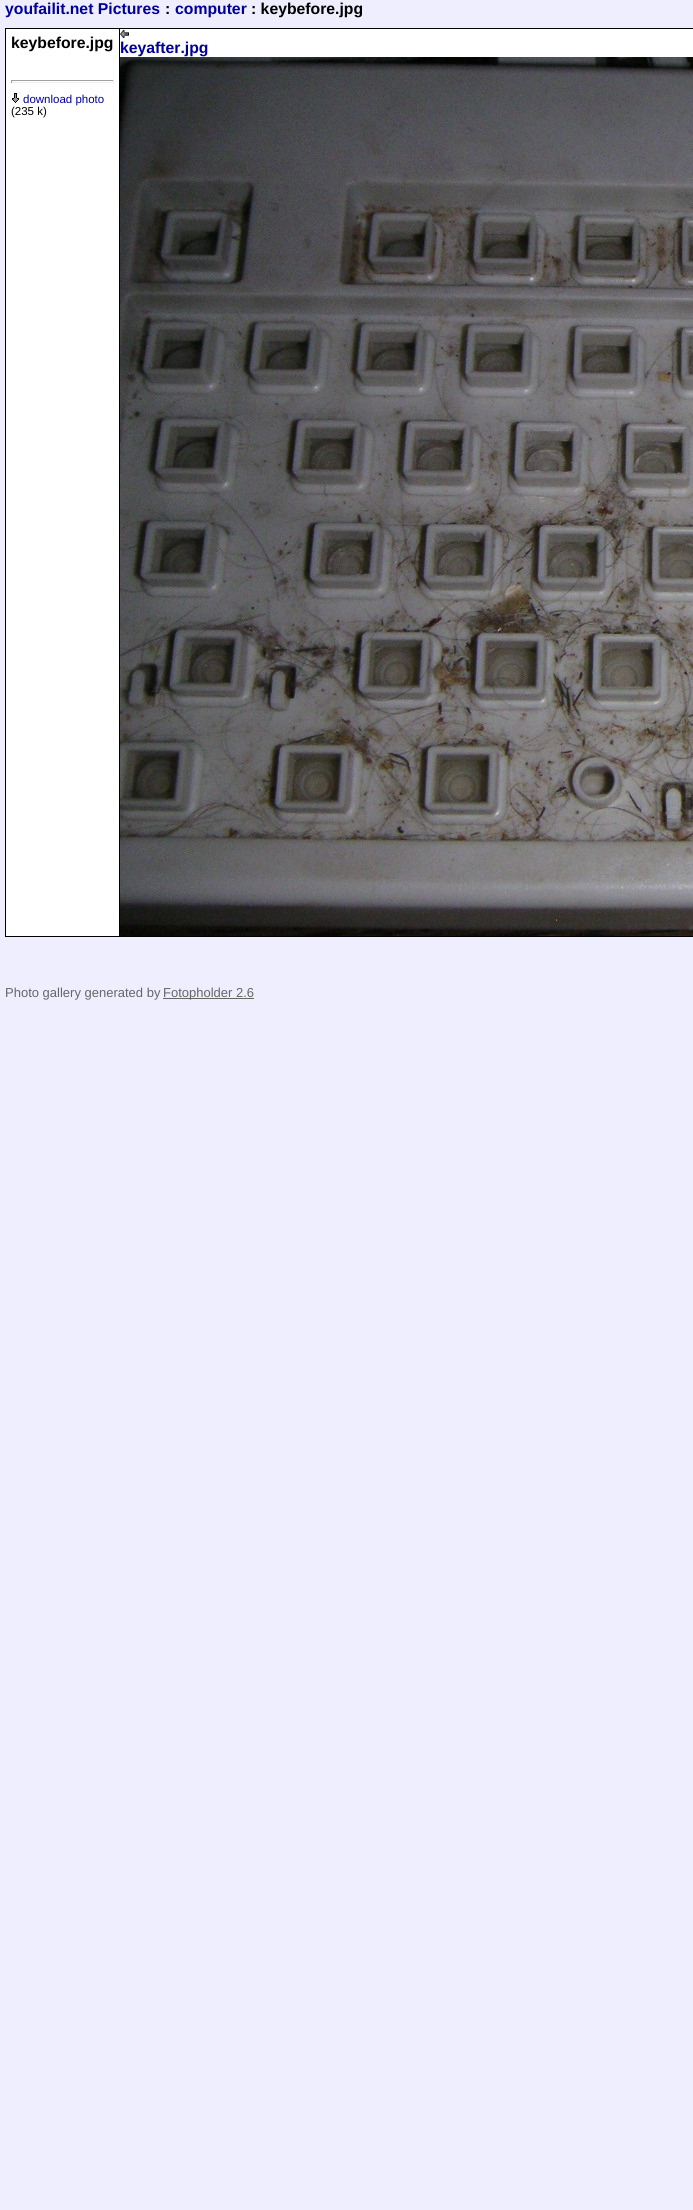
#include <cairo.h>
#include <math.h>
#include <stddef.h>

static cairo_t *ctx;

static void use_color(int r, int g, int b) {
    cairo_set_source_rgb(ctx, r / 255.0, g / 255.0, b / 255.0);
}

static void picture(const char *path, double x, double y, double w, double h) {
    cairo_surface_t *image = cairo_image_surface_create_from_png(path);
    cairo_save(ctx);
    cairo_set_source_surface(ctx, image, x, y);
    cairo_rectangle(ctx, x, y, w, h);
    cairo_fill(ctx);
    cairo_restore(ctx);
    cairo_surface_destroy(image);
}

int main(void) {
    cairo_surface_t *surface = cairo_image_surface_create(CAIRO_FORMAT_RGB24, 693, 2210);
    ctx = cairo_create(surface);
    cairo_font_options_t *options = cairo_font_options_create();
    cairo_font_options_set_hint_metrics(options, CAIRO_HINT_METRICS_OFF);
    cairo_font_options_set_hint_style(options, CAIRO_HINT_STYLE_NONE);
    cairo_set_font_options(ctx, options);
    cairo_set_miter_limit(ctx, 4);
    use_color(238, 238, 255);
    cairo_paint(ctx);
    cairo_select_font_face(ctx, "Liberation Sans", CAIRO_FONT_SLANT_NORMAL, CAIRO_FONT_WEIGHT_BOLD);
    cairo_set_font_size(ctx, 15.75);
    use_color(0, 0, 153);
    cairo_move_to(ctx, 5, 14);
    cairo_show_text(ctx, "youfailit.net Pictures");
    use_color(0, 0, 0);
    cairo_move_to(ctx, 165, 14);
    cairo_show_text(ctx, ":");
    use_color(0, 0, 153);
    cairo_move_to(ctx, 175, 14);
    cairo_show_text(ctx, "computer");
    use_color(0, 0, 0);
    cairo_move_to(ctx, 251, 14);
    cairo_show_text(ctx, ": keybefore.jpg");
    use_color(255, 255, 255);
    cairo_rectangle(ctx, 5.5, 28.5, 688, 908);
    cairo_fill_preserve(ctx);
    use_color(0, 0, 0);
    cairo_set_line_width(ctx, 1);
    cairo_stroke(ctx);
    cairo_rectangle(ctx, 119, 29, 1, 907);
    cairo_fill(ctx);
    cairo_move_to(ctx, 11, 48);
    cairo_show_text(ctx, "keybefore.jpg");
    use_color(159, 159, 159);
    cairo_rectangle(ctx, 11, 80, 103, 1);
    cairo_fill(ctx);
    use_color(238, 238, 238);
    cairo_rectangle(ctx, 113, 80, 1, 3);
    cairo_fill(ctx);
    cairo_rectangle(ctx, 11, 82, 103, 1);
    cairo_fill(ctx);
    use_color(159, 159, 159);
    cairo_rectangle(ctx, 11, 80, 1, 3);
    cairo_fill(ctx);
    picture("img1.png", 12, 93, 7, 10);
    cairo_select_font_face(ctx, "Liberation Sans", CAIRO_FONT_SLANT_NORMAL, CAIRO_FONT_WEIGHT_NORMAL);
    cairo_set_font_size(ctx, 11.5);
    use_color(0, 0, 153);
    cairo_move_to(ctx, 23, 103);
    cairo_show_text(ctx, "download photo");
    use_color(0, 0, 0);
    cairo_move_to(ctx, 11, 115);
    cairo_show_text(ctx, "(235 k)");
    picture("img2.png", 120, 30, 9, 8);
    cairo_select_font_face(ctx, "Liberation Sans", CAIRO_FONT_SLANT_NORMAL, CAIRO_FONT_WEIGHT_BOLD);
    cairo_set_font_size(ctx, 15.75);
    use_color(0, 0, 153);
    cairo_move_to(ctx, 120, 53);
    cairo_show_text(ctx, "keyafter.jpg");
    picture("img3.png", 120, 57, 573, 879);
    cairo_select_font_face(ctx, "Liberation Sans", CAIRO_FONT_SLANT_NORMAL, CAIRO_FONT_WEIGHT_NORMAL);
    cairo_set_font_size(ctx, 13);
    use_color(102, 102, 102);
    cairo_move_to(ctx, 5, 997);
    cairo_show_text(ctx, "Photo gallery generated by");
    cairo_rectangle(ctx, 163, 998, 91, 1);
    cairo_fill(ctx);
    cairo_move_to(ctx, 163, 997);
    cairo_show_text(ctx, "Fotopholder 2.6");
    cairo_surface_write_to_png(surface, "result.png");
    cairo_font_options_destroy(options);
    cairo_destroy(ctx);
    cairo_surface_destroy(surface);
    return 0;
}
